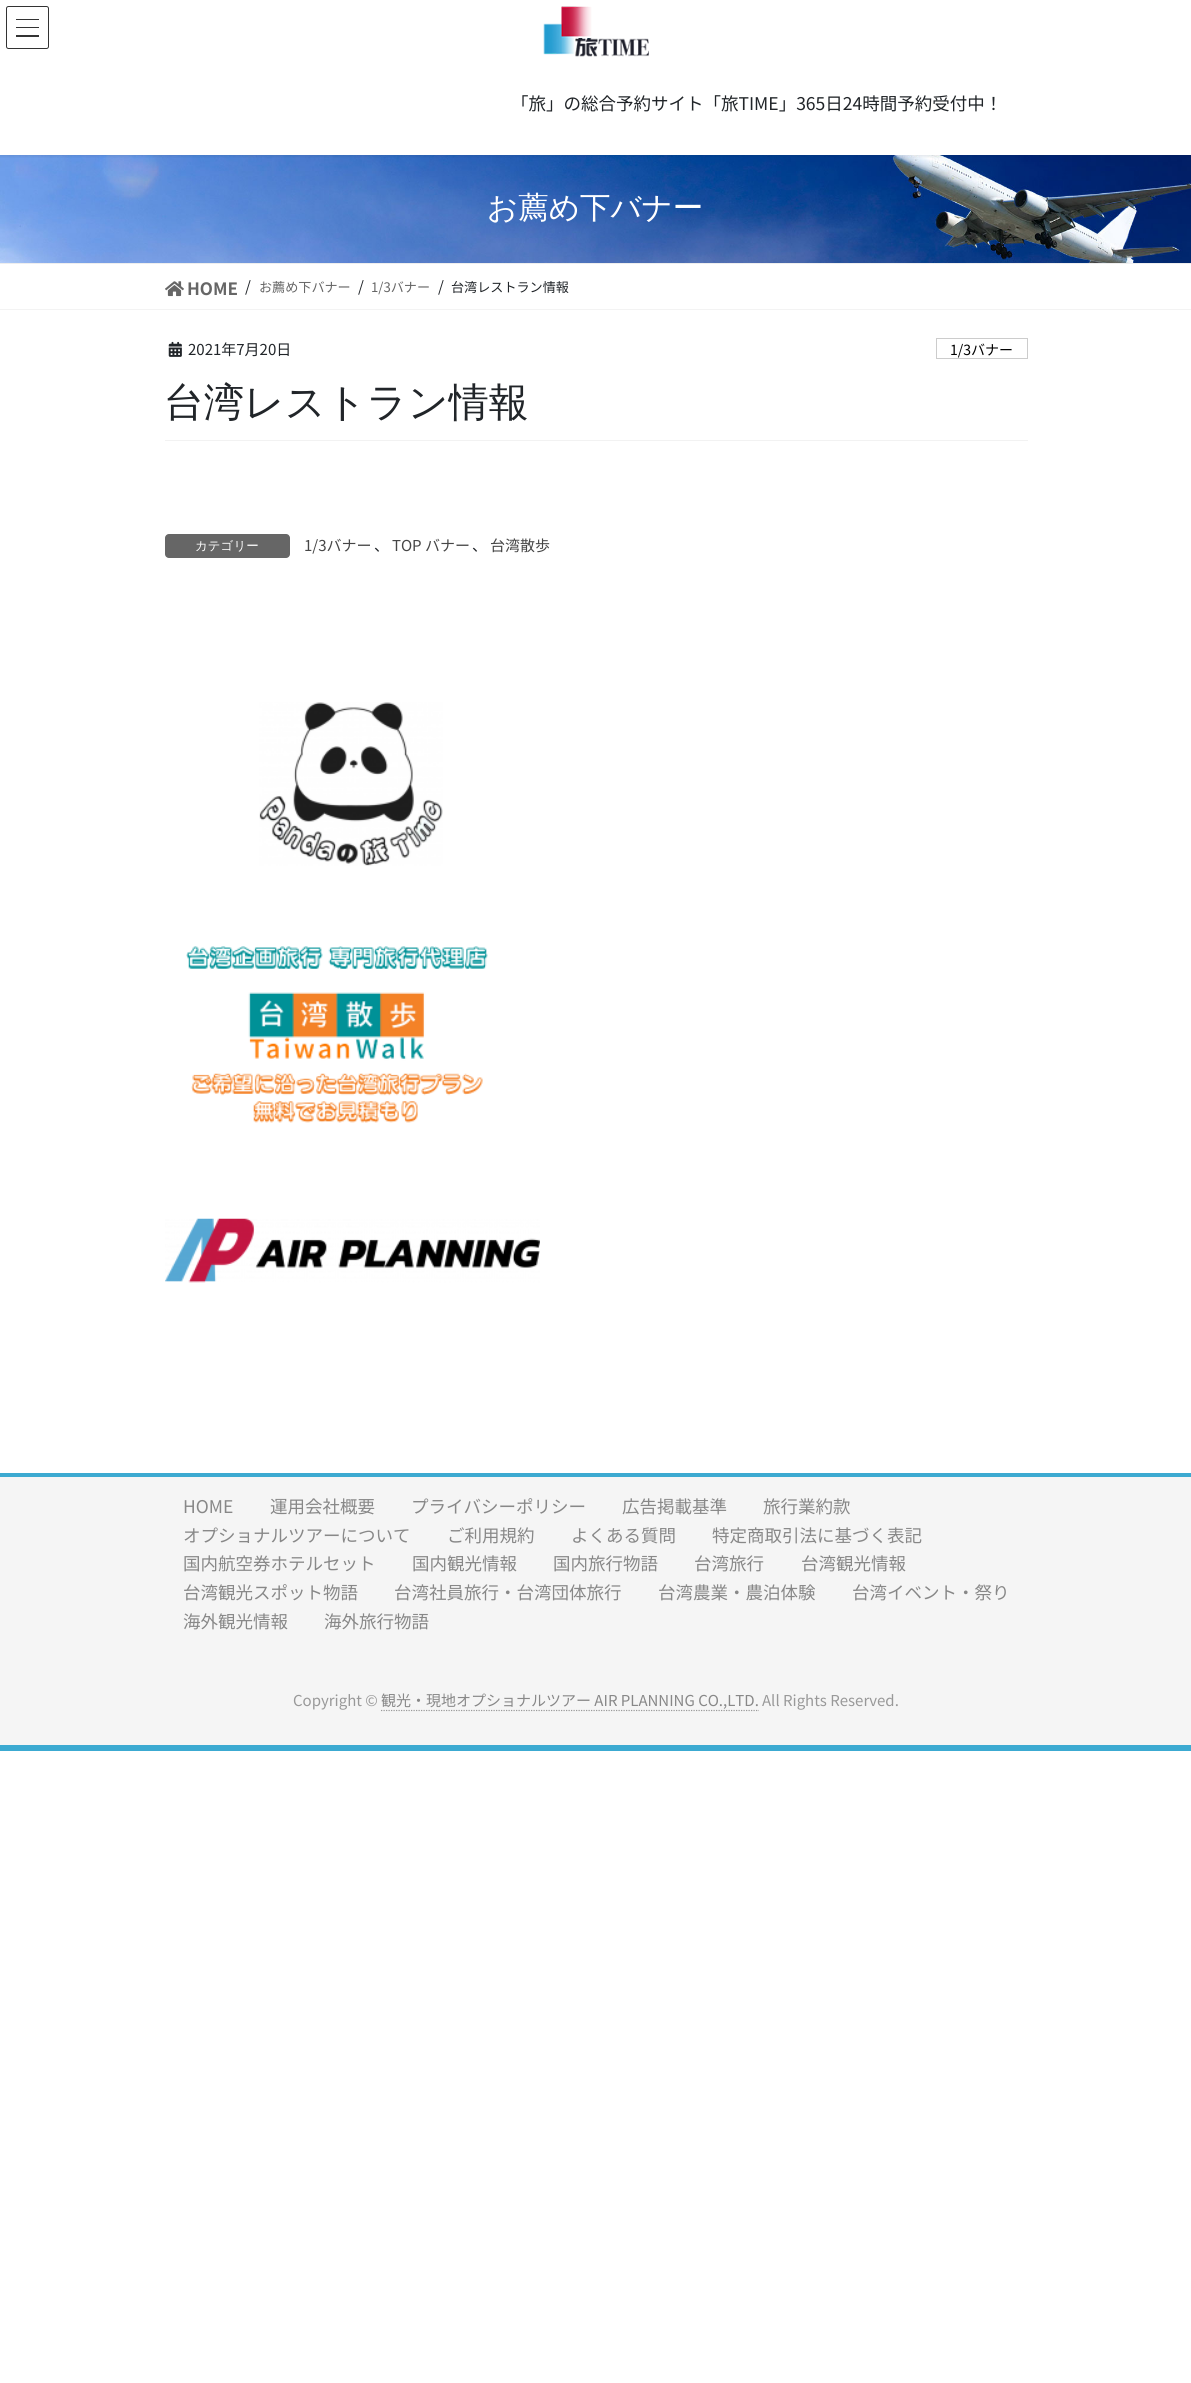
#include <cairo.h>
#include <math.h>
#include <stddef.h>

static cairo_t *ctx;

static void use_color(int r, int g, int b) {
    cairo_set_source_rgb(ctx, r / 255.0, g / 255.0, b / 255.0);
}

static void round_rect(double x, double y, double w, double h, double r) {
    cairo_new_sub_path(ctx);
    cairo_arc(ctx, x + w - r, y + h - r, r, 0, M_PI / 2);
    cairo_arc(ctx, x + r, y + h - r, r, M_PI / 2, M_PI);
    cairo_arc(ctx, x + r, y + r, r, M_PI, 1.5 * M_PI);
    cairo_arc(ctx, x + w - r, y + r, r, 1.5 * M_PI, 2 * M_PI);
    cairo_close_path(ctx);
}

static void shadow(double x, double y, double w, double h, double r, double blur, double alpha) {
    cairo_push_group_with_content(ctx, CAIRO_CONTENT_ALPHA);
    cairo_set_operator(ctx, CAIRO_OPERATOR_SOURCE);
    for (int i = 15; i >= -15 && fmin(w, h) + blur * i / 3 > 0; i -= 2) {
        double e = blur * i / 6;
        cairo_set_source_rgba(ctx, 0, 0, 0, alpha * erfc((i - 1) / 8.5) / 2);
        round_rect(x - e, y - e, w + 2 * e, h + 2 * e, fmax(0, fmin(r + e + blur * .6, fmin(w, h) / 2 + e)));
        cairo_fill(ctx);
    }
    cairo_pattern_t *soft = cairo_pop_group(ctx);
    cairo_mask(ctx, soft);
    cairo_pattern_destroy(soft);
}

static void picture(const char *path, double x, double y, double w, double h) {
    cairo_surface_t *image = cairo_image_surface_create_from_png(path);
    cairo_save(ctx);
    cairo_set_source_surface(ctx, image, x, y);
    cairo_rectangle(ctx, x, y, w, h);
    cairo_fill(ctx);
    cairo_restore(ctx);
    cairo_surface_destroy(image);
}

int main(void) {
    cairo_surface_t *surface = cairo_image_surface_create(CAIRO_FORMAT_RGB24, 1191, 2383);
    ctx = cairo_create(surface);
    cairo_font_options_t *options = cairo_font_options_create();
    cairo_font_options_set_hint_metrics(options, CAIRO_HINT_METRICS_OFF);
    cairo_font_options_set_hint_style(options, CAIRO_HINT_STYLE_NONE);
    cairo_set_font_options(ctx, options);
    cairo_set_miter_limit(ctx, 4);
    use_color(255, 255, 255);
    cairo_paint(ctx);
    picture("img2.png", 0, 155, 1191, 108);
    cairo_save(ctx);
    cairo_rectangle(ctx, 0, 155, 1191, 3);
    cairo_clip(ctx);
    use_color(0, 0, 0);
    shadow(0, 1, 1191, 155, 0, 2, 0.1);
    cairo_restore(ctx);
    use_color(51, 51, 51);
    cairo_rectangle(ctx, 16, 19, 23, 1);
    cairo_fill(ctx);
    cairo_rectangle(ctx, 16, 27, 23, 1);
    cairo_fill(ctx);
    cairo_rectangle(ctx, 16, 35, 23, 2);
    cairo_fill(ctx);
    round_rect(6.5, 6.5, 42, 42, 2);
    cairo_set_line_width(ctx, 1);
    cairo_stroke(ctx);
    picture("img1.png", 543, 6, 106, 51);
    cairo_select_font_face(ctx, "Noto Sans JP", CAIRO_FONT_SLANT_NORMAL, CAIRO_FONT_WEIGHT_NORMAL);
    cairo_set_font_size(ctx, 17.5);
    use_color(33, 37, 41);
    cairo_move_to(ctx, 511, 110);
    cairo_show_text(ctx, "「旅」の総合予約サイト「旅TIME」365日24時間予約受付中！");
    use_color(238, 238, 238);
    cairo_rectangle(ctx, 0, 263, 1191, 1);
    cairo_fill(ctx);
    cairo_select_font_face(ctx, "WenQuanYi Zen Hei Medium", CAIRO_FONT_SLANT_NORMAL, CAIRO_FONT_WEIGHT_NORMAL);
    cairo_set_font_size(ctx, 30.5);
    use_color(255, 255, 255);
    cairo_move_to(ctx, 487, 218);
    cairo_show_text(ctx, "お薦め下バナー");
    use_color(243, 243, 243);
    cairo_rectangle(ctx, 0, 309, 1191, 1);
    cairo_fill(ctx);
    picture("img3.png", 165, 281, 19, 16);
    cairo_select_font_face(ctx, "Noto Sans JP", CAIRO_FONT_SLANT_NORMAL, CAIRO_FONT_WEIGHT_BOLD);
    cairo_set_font_size(ctx, 17);
    use_color(102, 102, 102);
    cairo_move_to(ctx, 187, 295);
    cairo_show_text(ctx, "HOME");
    cairo_select_font_face(ctx, "Noto Sans JP", CAIRO_FONT_SLANT_NORMAL, CAIRO_FONT_WEIGHT_NORMAL);
    cairo_set_font_size(ctx, 15);
    use_color(33, 37, 41);
    cairo_move_to(ctx, 245, 292);
    cairo_show_text(ctx, "/");
    cairo_set_font_size(ctx, 13.1);
    use_color(102, 102, 102);
    cairo_move_to(ctx, 259, 292);
    cairo_show_text(ctx, "お薦め下バナー");
    cairo_set_font_size(ctx, 15);
    use_color(33, 37, 41);
    cairo_move_to(ctx, 358, 292);
    cairo_show_text(ctx, "/");
    cairo_set_font_size(ctx, 13.1);
    use_color(102, 102, 102);
    cairo_move_to(ctx, 371, 292);
    cairo_show_text(ctx, "1/3バナー");
    cairo_set_font_size(ctx, 15);
    use_color(33, 37, 41);
    cairo_move_to(ctx, 438, 292);
    cairo_show_text(ctx, "/");
    cairo_set_font_size(ctx, 13.1);
    cairo_move_to(ctx, 451, 292);
    cairo_show_text(ctx, "台湾レストラン情報");
    use_color(242, 242, 242);
    cairo_rectangle(ctx, 165, 440, 863, 1);
    cairo_fill(ctx);
    picture("img4.png", 168, 341, 14, 16);
    cairo_set_font_size(ctx, 15);
    use_color(33, 37, 41);
    cairo_move_to(ctx, 188, 355);
    cairo_show_text(ctx, "2021年7月20日");
    cairo_rectangle(ctx, 936.5, 338.5, 91, 20);
    use_color(204, 204, 204);
    cairo_stroke(ctx);
    cairo_set_font_size(ctx, 14);
    use_color(0, 0, 0);
    cairo_move_to(ctx, 950, 355);
    cairo_show_text(ctx, "1/3バナー");
    cairo_select_font_face(ctx, "WenQuanYi Zen Hei Medium", CAIRO_FONT_SLANT_NORMAL, CAIRO_FONT_WEIGHT_NORMAL);
    cairo_set_font_size(ctx, 40);
    use_color(33, 37, 41);
    cairo_move_to(ctx, 164, 416);
    cairo_show_text(ctx, "台湾レストラン情報");
    use_color(102, 102, 102);
    round_rect(165, 534, 125, 24, 4);
    cairo_fill(ctx);
    cairo_set_font_size(ctx, 12.5);
    use_color(255, 255, 255);
    cairo_move_to(ctx, 195, 550);
    cairo_show_text(ctx, "カテゴリー");
    cairo_select_font_face(ctx, "Noto Sans JP", CAIRO_FONT_SLANT_NORMAL, CAIRO_FONT_WEIGHT_NORMAL);
    cairo_set_font_size(ctx, 15);
    use_color(70, 70, 70);
    cairo_move_to(ctx, 304, 551);
    cairo_show_text(ctx, "1/3バナー");
    use_color(33, 37, 41);
    cairo_move_to(ctx, 374, 551);
    cairo_show_text(ctx, "、");
    use_color(70, 70, 70);
    cairo_move_to(ctx, 392, 551);
    cairo_show_text(ctx, "TOP バナー");
    use_color(33, 37, 41);
    cairo_move_to(ctx, 472, 551);
    cairo_show_text(ctx, "、");
    use_color(70, 70, 70);
    cairo_move_to(ctx, 490, 551);
    cairo_show_text(ctx, "台湾散歩");
    picture("img5.png", 259, 702, 184, 164);
    picture("img6.png", 186, 946, 302, 177);
    picture("img7.png", 165, 1218, 375, 65);
    use_color(245, 245, 245);
    cairo_rectangle(ctx, 0, 1477, 1191, 268);
    cairo_fill(ctx);
    use_color(60, 170, 209);
    cairo_rectangle(ctx, 0, 1473, 1191, 4);
    cairo_fill(ctx);
    cairo_rectangle(ctx, 0, 1745, 1191, 6);
    cairo_fill(ctx);
    cairo_set_font_size(ctx, 17.5);
    use_color(136, 136, 136);
    cairo_move_to(ctx, 183, 1513);
    cairo_show_text(ctx, "HOME");
    cairo_move_to(ctx, 270, 1513);
    cairo_show_text(ctx, "運用会社概要");
    cairo_move_to(ctx, 411, 1513);
    cairo_show_text(ctx, "プライバシーポリシー");
    cairo_move_to(ctx, 622, 1513);
    cairo_show_text(ctx, "広告掲載基準");
    cairo_move_to(ctx, 763, 1513);
    cairo_show_text(ctx, "旅行業約款");
    cairo_move_to(ctx, 183, 1542);
    cairo_show_text(ctx, "オプショナルツアーについて");
    cairo_move_to(ctx, 447, 1542);
    cairo_show_text(ctx, "ご利用規約");
    cairo_move_to(ctx, 571, 1542);
    cairo_show_text(ctx, "よくある質問");
    cairo_move_to(ctx, 712, 1542);
    cairo_show_text(ctx, "特定商取引法に基づく表記");
    cairo_move_to(ctx, 183, 1570);
    cairo_show_text(ctx, "国内航空券ホテルセット");
    cairo_move_to(ctx, 412, 1570);
    cairo_show_text(ctx, "国内観光情報");
    cairo_move_to(ctx, 553, 1570);
    cairo_show_text(ctx, "国内旅行物語");
    cairo_move_to(ctx, 694, 1570);
    cairo_show_text(ctx, "台湾旅行");
    cairo_move_to(ctx, 801, 1570);
    cairo_show_text(ctx, "台湾観光情報");
    cairo_move_to(ctx, 183, 1599);
    cairo_show_text(ctx, "台湾観光スポット物語");
    cairo_move_to(ctx, 394, 1599);
    cairo_show_text(ctx, "台湾社員旅行・台湾団体旅行");
    cairo_move_to(ctx, 658, 1599);
    cairo_show_text(ctx, "台湾農業・農泊体験");
    cairo_move_to(ctx, 852, 1599);
    cairo_show_text(ctx, "台湾イベント・祭り");
    cairo_move_to(ctx, 183, 1628);
    cairo_show_text(ctx, "海外観光情報");
    cairo_move_to(ctx, 324, 1628);
    cairo_show_text(ctx, "海外旅行物語");
    cairo_set_font_size(ctx, 15);
    use_color(153, 153, 153);
    cairo_move_to(ctx, 293, 1706);
    cairo_show_text(ctx, "Copyright ©");
    use_color(136, 136, 136);
    cairo_move_to(ctx, 381, 1706);
    cairo_show_text(ctx, "観光・現地オプショナルツアー AIR PLANNING CO.,LTD.");
    cairo_new_path(ctx);
    cairo_move_to(ctx, 381, 1710.5);
    cairo_line_to(ctx, 759, 1710.5);
    use_color(153, 153, 153);
    cairo_set_line_width(ctx, 1.2);
    cairo_set_dash(ctx, (double[]){1.25, 1.25}, 2, 0);
    cairo_stroke(ctx);
    cairo_move_to(ctx, 762, 1706);
    cairo_show_text(ctx, "All Rights Reserved.");
    cairo_surface_write_to_png(surface, "result.png");
    cairo_font_options_destroy(options);
    cairo_destroy(ctx);
    cairo_surface_destroy(surface);
    return 0;
}
